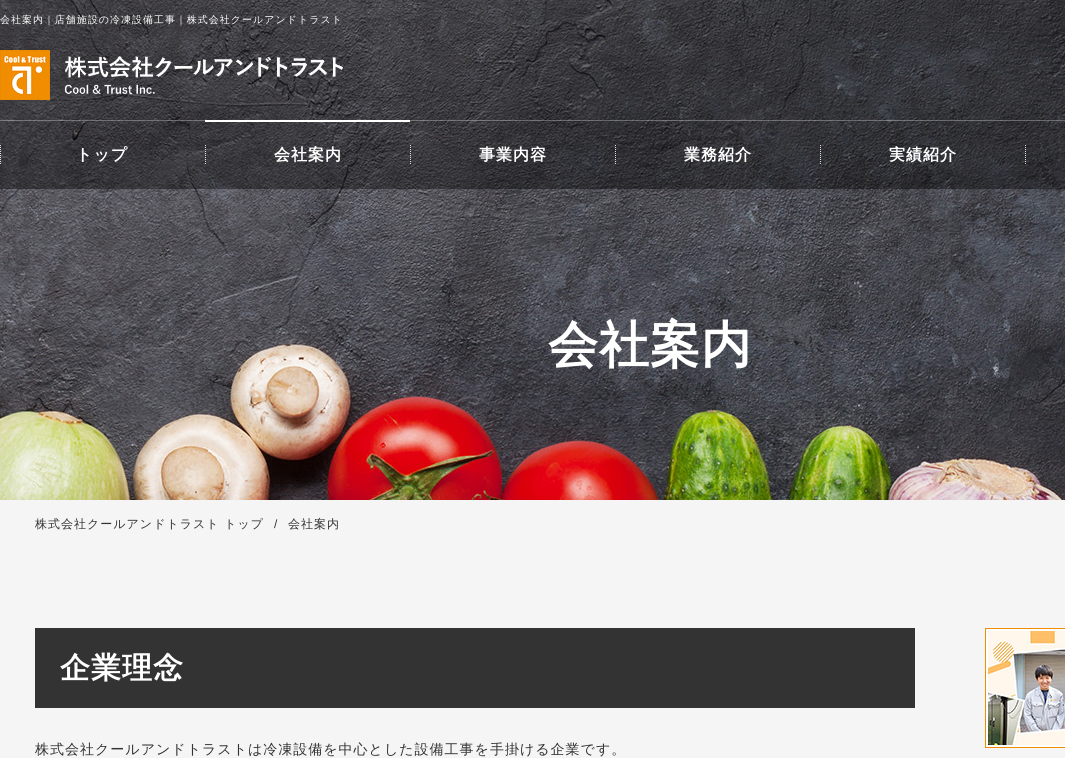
#include <cairo.h>
#include <math.h>
#include <stddef.h>

static cairo_t *ctx;

static void use_color(int r, int g, int b) {
    cairo_set_source_rgb(ctx, r / 255.0, g / 255.0, b / 255.0);
}

static void spaced_text(double x, double y, const char *s, double letter, double word) {
    cairo_move_to(ctx, x, y);
    while (*s) {
        char ch[5] = {0};
        int n = 0;
        do ch[n++] = *s++; while ((*s & 0xC0) == 0x80);
        cairo_show_text(ctx, ch);
        cairo_rel_move_to(ctx, letter + word * (*ch == ' '), 0);
    }
}

static void picture(const char *path, double x, double y, double w, double h) {
    cairo_surface_t *image = cairo_image_surface_create_from_png(path);
    cairo_save(ctx);
    cairo_set_source_surface(ctx, image, x, y);
    cairo_rectangle(ctx, x, y, w, h);
    cairo_fill(ctx);
    cairo_restore(ctx);
    cairo_surface_destroy(image);
}

int main(void) {
    cairo_surface_t *surface = cairo_image_surface_create(CAIRO_FORMAT_RGB24, 1065, 758);
    ctx = cairo_create(surface);
    cairo_font_options_t *options = cairo_font_options_create();
    cairo_font_options_set_hint_metrics(options, CAIRO_HINT_METRICS_OFF);
    cairo_font_options_set_hint_style(options, CAIRO_HINT_STYLE_NONE);
    cairo_set_font_options(ctx, options);
    cairo_set_miter_limit(ctx, 4);
    use_color(245, 245, 245);
    cairo_paint(ctx);
    picture("img2.png", 0, 0, 1065, 500);
    cairo_set_source_rgba(ctx, 0, 0, 0, 0.4);
    cairo_rectangle(ctx, 0, 0, 1065, 189);
    cairo_fill(ctx);
    cairo_select_font_face(ctx, "WenQuanYi Zen Hei Medium", CAIRO_FONT_SLANT_NORMAL, CAIRO_FONT_WEIGHT_NORMAL);
    cairo_set_font_size(ctx, 10);
    use_color(255, 255, 255);
    spaced_text(0, 23, "会社案内｜店舗施設の冷凍設備工事｜株式会社クールアンドトラスト", 1, 0);
    picture("img1.png", 0, 50, 343, 50);
    cairo_set_source_rgba(ctx, 1, 1, 1, 0.3);
    cairo_rectangle(ctx, 0, 120, 1065, 1);
    cairo_fill(ctx);
    cairo_new_path(ctx);
    cairo_move_to(ctx, 0.5, 145);
    cairo_line_to(ctx, 0.5, 165);
    use_color(221, 221, 221);
    cairo_set_line_width(ctx, 1);
    cairo_set_dash(ctx, (double[]){1, 1}, 2, 0);
    cairo_stroke(ctx);
    cairo_select_font_face(ctx, "WenQuanYi Zen Hei", CAIRO_FONT_SLANT_NORMAL, CAIRO_FONT_WEIGHT_BOLD);
    cairo_set_font_size(ctx, 16);
    use_color(255, 255, 255);
    spaced_text(76, 160, "トップ", 1, 0);
    cairo_new_path(ctx);
    cairo_move_to(ctx, 205.5, 145);
    cairo_line_to(ctx, 205.5, 165);
    use_color(221, 221, 221);
    cairo_stroke(ctx);
    use_color(255, 255, 255);
    cairo_rectangle(ctx, 205, 120, 205, 2);
    cairo_fill(ctx);
    spaced_text(274, 160, "会社案内", 1, 0);
    cairo_new_path(ctx);
    cairo_move_to(ctx, 410.5, 145);
    cairo_line_to(ctx, 410.5, 165);
    use_color(221, 221, 221);
    cairo_stroke(ctx);
    use_color(255, 255, 255);
    spaced_text(479, 160, "事業内容", 1, 0);
    cairo_new_path(ctx);
    cairo_move_to(ctx, 615.5, 145);
    cairo_line_to(ctx, 615.5, 165);
    use_color(221, 221, 221);
    cairo_stroke(ctx);
    use_color(255, 255, 255);
    spaced_text(684, 160, "業務紹介", 1, 0);
    cairo_new_path(ctx);
    cairo_move_to(ctx, 820.5, 145);
    cairo_line_to(ctx, 820.5, 165);
    use_color(221, 221, 221);
    cairo_stroke(ctx);
    use_color(255, 255, 255);
    spaced_text(889, 160, "実績紹介", 1, 0);
    cairo_new_path(ctx);
    cairo_move_to(ctx, 1025.5, 145);
    cairo_line_to(ctx, 1025.5, 165);
    use_color(221, 221, 221);
    cairo_stroke(ctx);
    cairo_set_font_size(ctx, 50);
    use_color(255, 255, 255);
    spaced_text(548, 362, "会社案内", 1, 0);
    cairo_select_font_face(ctx, "WenQuanYi Zen Hei Medium", CAIRO_FONT_SLANT_NORMAL, CAIRO_FONT_WEIGHT_NORMAL);
    cairo_set_font_size(ctx, 12);
    use_color(51, 51, 51);
    spaced_text(35, 528, "株式会社クールアンドトラスト トップ", 1, 0);
    cairo_select_font_face(ctx, "Liberation Sans", CAIRO_FONT_SLANT_NORMAL, CAIRO_FONT_WEIGHT_NORMAL);
    spaced_text(274, 528, "/", 1, 0);
    cairo_select_font_face(ctx, "WenQuanYi Zen Hei Medium", CAIRO_FONT_SLANT_NORMAL, CAIRO_FONT_WEIGHT_NORMAL);
    spaced_text(288, 528, "会社案内", 1, 0);
    cairo_rectangle(ctx, 35, 628, 880, 80);
    cairo_fill(ctx);
    cairo_select_font_face(ctx, "WenQuanYi Zen Hei", CAIRO_FONT_SLANT_NORMAL, CAIRO_FONT_WEIGHT_BOLD);
    cairo_set_font_size(ctx, 30);
    use_color(255, 255, 255);
    spaced_text(60, 678, "企業理念", 1, 0);
    cairo_select_font_face(ctx, "WenQuanYi Zen Hei Medium", CAIRO_FONT_SLANT_NORMAL, CAIRO_FONT_WEIGHT_NORMAL);
    cairo_set_font_size(ctx, 14);
    use_color(51, 51, 51);
    spaced_text(35, 754, "株式会社クールアンドトラストは冷凍設備を中心とした設備工事を手掛ける企業です。", 1, 0);
    picture("img3.png", 985, 628, 80, 120);
    cairo_surface_write_to_png(surface, "result.png");
    cairo_font_options_destroy(options);
    cairo_destroy(ctx);
    cairo_surface_destroy(surface);
    return 0;
}
